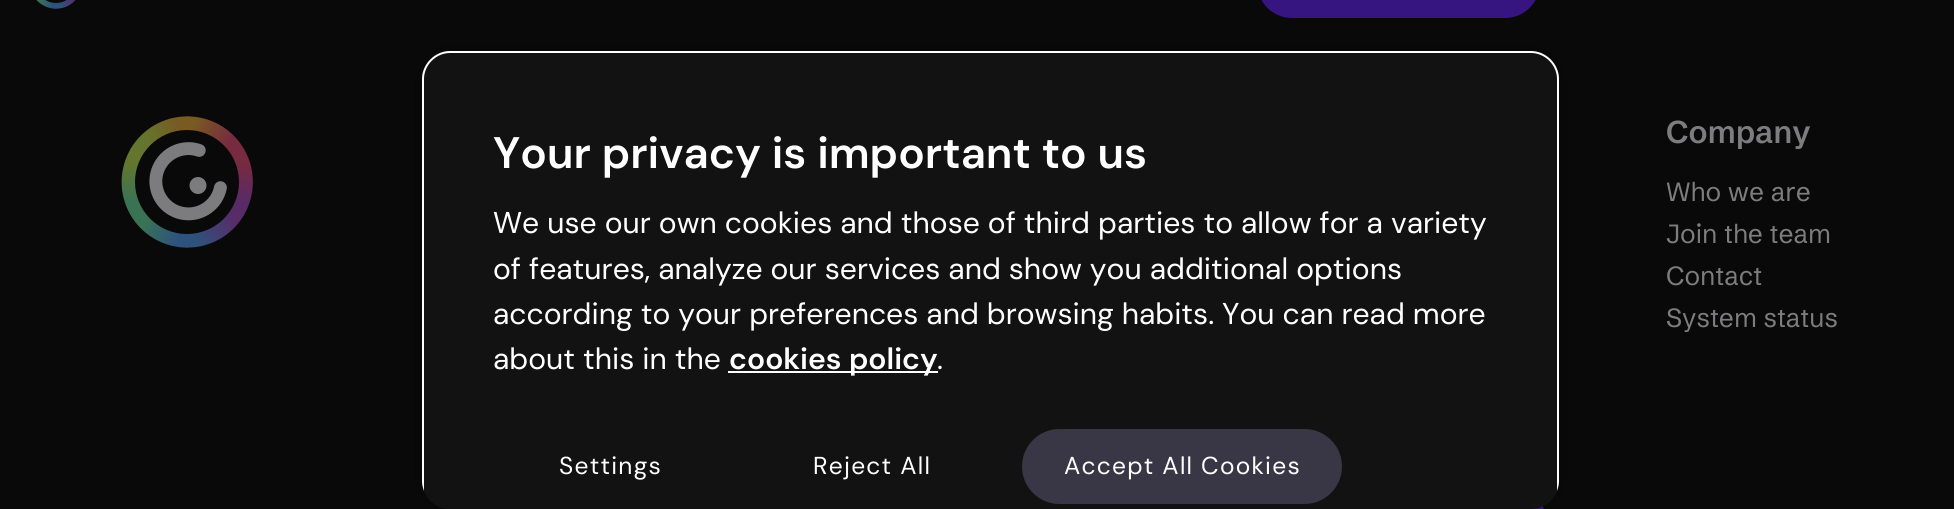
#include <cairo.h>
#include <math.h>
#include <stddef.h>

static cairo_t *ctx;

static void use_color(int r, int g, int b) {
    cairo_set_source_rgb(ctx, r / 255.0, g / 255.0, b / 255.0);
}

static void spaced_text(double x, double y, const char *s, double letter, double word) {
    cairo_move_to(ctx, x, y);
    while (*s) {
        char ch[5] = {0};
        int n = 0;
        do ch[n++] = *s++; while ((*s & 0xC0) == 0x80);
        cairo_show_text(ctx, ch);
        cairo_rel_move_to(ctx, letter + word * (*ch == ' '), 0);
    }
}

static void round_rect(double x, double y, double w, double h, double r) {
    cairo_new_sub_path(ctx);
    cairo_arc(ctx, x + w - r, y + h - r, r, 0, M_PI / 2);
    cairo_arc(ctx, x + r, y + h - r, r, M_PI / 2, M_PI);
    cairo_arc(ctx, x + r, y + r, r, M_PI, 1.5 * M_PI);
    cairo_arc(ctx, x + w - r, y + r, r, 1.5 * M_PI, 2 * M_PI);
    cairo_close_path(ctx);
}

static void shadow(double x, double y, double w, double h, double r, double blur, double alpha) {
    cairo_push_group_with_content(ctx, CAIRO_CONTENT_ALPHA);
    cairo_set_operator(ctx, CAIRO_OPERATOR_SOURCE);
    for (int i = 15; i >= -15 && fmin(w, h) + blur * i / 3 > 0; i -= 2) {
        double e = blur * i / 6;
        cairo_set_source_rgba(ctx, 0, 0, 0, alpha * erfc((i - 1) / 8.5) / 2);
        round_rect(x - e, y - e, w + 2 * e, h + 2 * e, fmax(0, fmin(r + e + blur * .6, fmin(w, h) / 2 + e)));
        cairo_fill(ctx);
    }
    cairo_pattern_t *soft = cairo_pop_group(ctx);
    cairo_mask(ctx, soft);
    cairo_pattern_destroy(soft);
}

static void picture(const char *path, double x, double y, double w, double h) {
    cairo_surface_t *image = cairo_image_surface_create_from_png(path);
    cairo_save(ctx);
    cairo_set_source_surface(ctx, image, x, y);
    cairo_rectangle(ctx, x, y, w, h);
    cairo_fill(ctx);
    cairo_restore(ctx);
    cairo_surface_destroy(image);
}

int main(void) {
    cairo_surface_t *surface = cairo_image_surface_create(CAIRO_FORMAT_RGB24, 1954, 509);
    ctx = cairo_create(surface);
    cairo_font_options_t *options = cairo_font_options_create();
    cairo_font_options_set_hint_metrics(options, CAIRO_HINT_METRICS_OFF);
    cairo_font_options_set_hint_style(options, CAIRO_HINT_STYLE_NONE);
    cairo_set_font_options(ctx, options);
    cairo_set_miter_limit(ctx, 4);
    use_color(9, 9, 9);
    cairo_paint(ctx);
    use_color(54, 21, 128);
    round_rect(1257, -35, 283, 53, 35);
    cairo_fill(ctx);
    round_rect(1311, 483, 234, 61, 35);
    cairo_fill(ctx);
    use_color(0, 0, 0);
    shadow(422, 51, 1137, 458, 28, 16, 0.2);
    use_color(18, 18, 18);
    round_rect(422, 51, 1137, 458, 28);
    cairo_fill(ctx);
    use_color(255, 255, 255);
    cairo_new_path(ctx);
    cairo_move_to(ctx, 450, 51);
    cairo_curve_to(ctx, 435, 51, 422, 64, 422, 79);
    cairo_line_to(ctx, 422, 481);
    cairo_curve_to(ctx, 422, 485, 423, 488, 424, 491);
    cairo_line_to(ctx, 424, 79);
    cairo_curve_to(ctx, 424, 65, 436, 53, 450, 53);
    cairo_line_to(ctx, 1531, 53);
    cairo_curve_to(ctx, 1545, 53, 1557, 65, 1557, 79);
    cairo_line_to(ctx, 1557, 491);
    cairo_curve_to(ctx, 1558, 488, 1559, 485, 1559, 481);
    cairo_line_to(ctx, 1559, 79);
    cairo_curve_to(ctx, 1559, 64, 1546, 51, 1531, 51);
    cairo_close_path(ctx);
    cairo_fill(ctx);
    cairo_select_font_face(ctx, "DM Sans SemiBold", CAIRO_FONT_SLANT_NORMAL, CAIRO_FONT_WEIGHT_NORMAL);
    cairo_set_font_size(ctx, 44.1);
    cairo_move_to(ctx, 493, 168);
    cairo_show_text(ctx, "Your privacy is important to us");
    cairo_select_font_face(ctx, "DM Sans", CAIRO_FONT_SLANT_NORMAL, CAIRO_FONT_WEIGHT_NORMAL);
    cairo_set_font_size(ctx, 30.1);
    cairo_move_to(ctx, 493, 233);
    cairo_show_text(ctx, "We use our own cookies and those of third parties to allow for a variety");
    cairo_move_to(ctx, 493, 279);
    cairo_show_text(ctx, "of features, analyze our services and show you additional options");
    cairo_move_to(ctx, 493, 324);
    cairo_show_text(ctx, "according to your preferences and browsing habits. You can read more");
    cairo_move_to(ctx, 493, 369);
    cairo_show_text(ctx, "about this in the");
    cairo_rectangle(ctx, 728, 371, 210, 2);
    cairo_fill(ctx);
    cairo_select_font_face(ctx, "DM Sans SemiBold", CAIRO_FONT_SLANT_NORMAL, CAIRO_FONT_WEIGHT_NORMAL);
    cairo_move_to(ctx, 729, 369);
    cairo_show_text(ctx, "cookies policy");
    cairo_select_font_face(ctx, "DM Sans", CAIRO_FONT_SLANT_NORMAL, CAIRO_FONT_WEIGHT_NORMAL);
    cairo_move_to(ctx, 937, 369);
    cairo_show_text(ctx, ".");
    cairo_set_font_size(ctx, 24.5);
    spaced_text(559, 474, "Settings", 1.25, 0);
    spaced_text(813, 474, "Reject All", 1.25, 0);
    use_color(57, 54, 69);
    round_rect(1021, 428, 322, 77, 38.5);
    cairo_fill_preserve(ctx);
    use_color(18, 18, 18);
    cairo_stroke(ctx);
    use_color(255, 255, 255);
    spaced_text(1064, 474, "Accept All Cookies", 1.25, 0);
    picture("img1.png", 36, 0, 40, 9);
    picture("img2.png", 121, 116, 132, 132);
    cairo_select_font_face(ctx, "Schibsted Grotesk SemiBold", CAIRO_FONT_SLANT_NORMAL, CAIRO_FONT_WEIGHT_NORMAL);
    cairo_set_font_size(ctx, 31.5);
    use_color(125, 124, 126);
    cairo_move_to(ctx, 1666, 143);
    cairo_show_text(ctx, "Company");
    cairo_select_font_face(ctx, "Schibsted Grotesk", CAIRO_FONT_SLANT_NORMAL, CAIRO_FONT_WEIGHT_NORMAL);
    cairo_set_font_size(ctx, 26.25);
    cairo_move_to(ctx, 1666, 201);
    cairo_show_text(ctx, "Who we are");
    cairo_move_to(ctx, 1666, 243);
    cairo_show_text(ctx, "Join the team");
    cairo_move_to(ctx, 1666, 285);
    cairo_show_text(ctx, "Contact");
    cairo_move_to(ctx, 1666, 327);
    cairo_show_text(ctx, "System status");
    cairo_surface_write_to_png(surface, "result.png");
    cairo_font_options_destroy(options);
    cairo_destroy(ctx);
    cairo_surface_destroy(surface);
    return 0;
}
